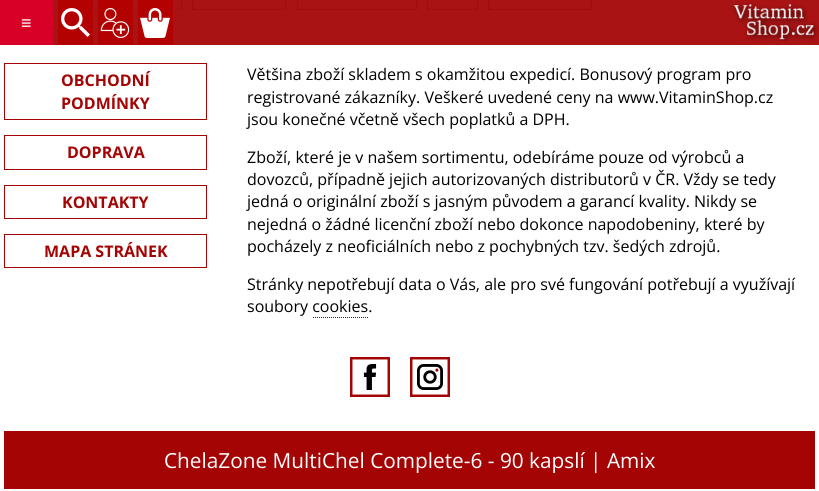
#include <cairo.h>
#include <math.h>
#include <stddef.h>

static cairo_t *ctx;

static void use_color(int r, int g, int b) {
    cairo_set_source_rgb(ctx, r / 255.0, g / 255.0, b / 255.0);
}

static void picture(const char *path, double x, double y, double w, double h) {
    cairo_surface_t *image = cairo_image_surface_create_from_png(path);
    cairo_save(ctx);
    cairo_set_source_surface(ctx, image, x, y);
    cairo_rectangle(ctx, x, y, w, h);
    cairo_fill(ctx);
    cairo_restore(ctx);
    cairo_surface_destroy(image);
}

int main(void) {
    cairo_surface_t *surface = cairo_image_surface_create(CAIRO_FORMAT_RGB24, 819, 491);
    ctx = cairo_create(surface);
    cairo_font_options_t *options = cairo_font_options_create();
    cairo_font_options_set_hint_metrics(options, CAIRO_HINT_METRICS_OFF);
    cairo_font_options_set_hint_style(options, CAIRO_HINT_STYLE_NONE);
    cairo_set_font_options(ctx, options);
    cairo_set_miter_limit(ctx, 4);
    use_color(255, 255, 255);
    cairo_paint(ctx);
    use_color(170, 19, 19);
    cairo_rectangle(ctx, 53, 0, 766, 45);
    cairo_fill(ctx);
    use_color(216, 0, 39);
    cairo_rectangle(ctx, 0, 0, 53, 45);
    cairo_fill(ctx);
    cairo_select_font_face(ctx, "Liberation Sans", CAIRO_FONT_SLANT_NORMAL, CAIRO_FONT_WEIGHT_BOLD);
    cairo_set_font_size(ctx, 18);
    use_color(255, 255, 255);
    cairo_move_to(ctx, 21, 29);
    cairo_show_text(ctx, "≡");
    cairo_new_path(ctx);
    cairo_move_to(ctx, 58, 9.5);
    cairo_line_to(ctx, 182, 9.5);
    use_color(158, 6, 6);
    cairo_set_line_width(ctx, 1);
    cairo_set_dash(ctx, (double[]){1, 1}, 2, 0);
    cairo_stroke(ctx);
    use_color(179, 0, 0);
    cairo_rectangle(ctx, 58, 0, 35, 45);
    cairo_fill(ctx);
    picture("img1.png", 61, 8, 29, 29);
    cairo_rectangle(ctx, 98, 0, 35, 45);
    cairo_fill(ctx);
    picture("img2.png", 100, 8, 30, 30);
    cairo_rectangle(ctx, 138, 0, 35, 45);
    cairo_fill(ctx);
    picture("img3.png", 140, 8, 30, 30);
    picture("img4.png", 732, 3, 87, 38);
    cairo_new_path(ctx);
    cairo_move_to(ctx, 181.5, -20);
    cairo_line_to(ctx, 181.5, 10);
    use_color(158, 6, 6);
    cairo_stroke(ctx);
    cairo_new_path(ctx);
    cairo_move_to(ctx, 192.5, -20);
    cairo_line_to(ctx, 192.5, 10);
    cairo_stroke(ctx);
    cairo_new_path(ctx);
    cairo_move_to(ctx, 285.5, -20);
    cairo_line_to(ctx, 285.5, 10);
    cairo_stroke(ctx);
    cairo_new_path(ctx);
    cairo_move_to(ctx, 297.5, -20);
    cairo_line_to(ctx, 297.5, 10);
    cairo_stroke(ctx);
    cairo_new_path(ctx);
    cairo_move_to(ctx, 416.5, -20);
    cairo_line_to(ctx, 416.5, 10);
    cairo_stroke(ctx);
    cairo_new_path(ctx);
    cairo_move_to(ctx, 477.5, -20);
    cairo_line_to(ctx, 477.5, 10);
    cairo_move_to(ctx, 427, 9.5);
    cairo_line_to(ctx, 478, 9.5);
    cairo_move_to(ctx, 427.5, -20);
    cairo_line_to(ctx, 427.5, 10);
    cairo_stroke(ctx);
    cairo_new_path(ctx);
    cairo_move_to(ctx, 488.5, -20);
    cairo_line_to(ctx, 488.5, 10);
    cairo_stroke(ctx);
    cairo_new_path(ctx);
    cairo_move_to(ctx, 591.5, -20);
    cairo_line_to(ctx, 591.5, 10);
    cairo_stroke(ctx);
    cairo_new_path(ctx);
    cairo_move_to(ctx, 192, 9.5);
    cairo_line_to(ctx, 286, 9.5);
    cairo_stroke(ctx);
    cairo_new_path(ctx);
    cairo_move_to(ctx, 297, 9.5);
    cairo_line_to(ctx, 417, 9.5);
    cairo_stroke(ctx);
    cairo_new_path(ctx);
    cairo_move_to(ctx, 488, 9.5);
    cairo_line_to(ctx, 592, 9.5);
    cairo_stroke(ctx);
    cairo_rectangle(ctx, 4.5, 63.5, 202, 56);
    use_color(165, 4, 4);
    cairo_set_dash(ctx, NULL, 0, 0);
    cairo_stroke(ctx);
    cairo_select_font_face(ctx, "Open Sans", CAIRO_FONT_SLANT_NORMAL, CAIRO_FONT_WEIGHT_BOLD);
    cairo_set_font_size(ctx, 16);
    cairo_move_to(ctx, 61, 86);
    cairo_show_text(ctx, "OBCHODNÍ");
    cairo_move_to(ctx, 61, 109);
    cairo_show_text(ctx, "PODMÍNKY");
    cairo_rectangle(ctx, 4.5, 135.5, 202, 34);
    cairo_stroke(ctx);
    cairo_move_to(ctx, 67, 158);
    cairo_show_text(ctx, "DOPRAVA");
    cairo_rectangle(ctx, 4.5, 185.5, 202, 33);
    cairo_stroke(ctx);
    cairo_move_to(ctx, 62, 208);
    cairo_show_text(ctx, "KONTAKTY");
    cairo_rectangle(ctx, 4.5, 234.5, 202, 33);
    cairo_stroke(ctx);
    cairo_move_to(ctx, 44, 257);
    cairo_show_text(ctx, "MAPA STRÁNEK");
    cairo_select_font_face(ctx, "Open Sans", CAIRO_FONT_SLANT_NORMAL, CAIRO_FONT_WEIGHT_NORMAL);
    use_color(0, 0, 0);
    cairo_move_to(ctx, 247, 80);
    cairo_show_text(ctx, "Většina zboží skladem s okamžitou expedicí. Bonusový program pro");
    cairo_move_to(ctx, 247, 103);
    cairo_show_text(ctx, "registrované zákazníky. Veškeré uvedené ceny na www.VitaminShop.cz");
    cairo_move_to(ctx, 247, 125);
    cairo_show_text(ctx, "jsou konečné včetně všech poplatků a DPH.");
    cairo_move_to(ctx, 247, 163);
    cairo_show_text(ctx, "Zboží, které je v našem sortimentu, odebíráme pouze od výrobců a");
    cairo_move_to(ctx, 247, 185);
    cairo_show_text(ctx, "dovozců, případně jejich autorizovaných distributorů v ČR. Vždy se tedy");
    cairo_move_to(ctx, 247, 207);
    cairo_show_text(ctx, "jedná o originální zboží s jasným původem a garancí kvality. Nikdy se");
    cairo_move_to(ctx, 247, 230);
    cairo_show_text(ctx, "nejedná o žádné licenční zboží nebo dokonce napodobeniny, které by");
    cairo_move_to(ctx, 247, 252);
    cairo_show_text(ctx, "pocházely z neoficiálních nebo z pochybných tzv. šedých zdrojů.");
    cairo_move_to(ctx, 247, 290);
    cairo_show_text(ctx, "Stránky nepotřebují data o Vás, ale pro své fungování potřebují a využívají");
    cairo_move_to(ctx, 247, 312);
    cairo_show_text(ctx, "soubory cookies.");
    cairo_new_path(ctx);
    cairo_move_to(ctx, 313, 317.5);
    cairo_line_to(ctx, 368, 317.5);
    use_color(41, 41, 41);
    cairo_set_dash(ctx, (double[]){1, 1}, 2, 0);
    cairo_stroke(ctx);
    picture("img5.png", 350, 357, 40, 40);
    picture("img6.png", 410, 357, 40, 40);
    use_color(165, 4, 4);
    cairo_rectangle(ctx, 4, 431, 811, 58);
    cairo_fill(ctx);
    cairo_set_font_size(ctx, 20.8);
    use_color(255, 255, 255);
    cairo_move_to(ctx, 164, 468);
    cairo_show_text(ctx, "ChelaZone MultiChel Complete-6 - 90 kapslí | Amix");
    cairo_surface_write_to_png(surface, "result.png");
    cairo_font_options_destroy(options);
    cairo_destroy(ctx);
    cairo_surface_destroy(surface);
    return 0;
}
